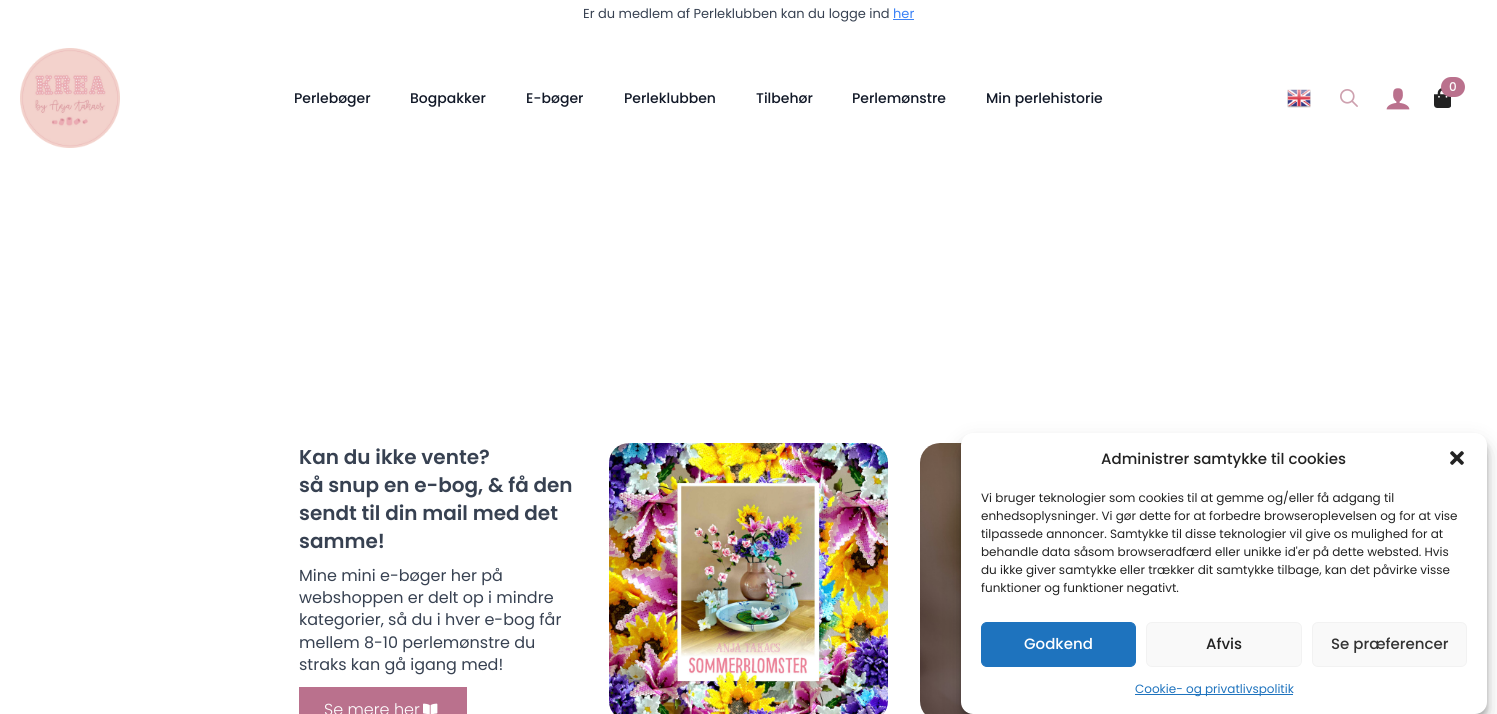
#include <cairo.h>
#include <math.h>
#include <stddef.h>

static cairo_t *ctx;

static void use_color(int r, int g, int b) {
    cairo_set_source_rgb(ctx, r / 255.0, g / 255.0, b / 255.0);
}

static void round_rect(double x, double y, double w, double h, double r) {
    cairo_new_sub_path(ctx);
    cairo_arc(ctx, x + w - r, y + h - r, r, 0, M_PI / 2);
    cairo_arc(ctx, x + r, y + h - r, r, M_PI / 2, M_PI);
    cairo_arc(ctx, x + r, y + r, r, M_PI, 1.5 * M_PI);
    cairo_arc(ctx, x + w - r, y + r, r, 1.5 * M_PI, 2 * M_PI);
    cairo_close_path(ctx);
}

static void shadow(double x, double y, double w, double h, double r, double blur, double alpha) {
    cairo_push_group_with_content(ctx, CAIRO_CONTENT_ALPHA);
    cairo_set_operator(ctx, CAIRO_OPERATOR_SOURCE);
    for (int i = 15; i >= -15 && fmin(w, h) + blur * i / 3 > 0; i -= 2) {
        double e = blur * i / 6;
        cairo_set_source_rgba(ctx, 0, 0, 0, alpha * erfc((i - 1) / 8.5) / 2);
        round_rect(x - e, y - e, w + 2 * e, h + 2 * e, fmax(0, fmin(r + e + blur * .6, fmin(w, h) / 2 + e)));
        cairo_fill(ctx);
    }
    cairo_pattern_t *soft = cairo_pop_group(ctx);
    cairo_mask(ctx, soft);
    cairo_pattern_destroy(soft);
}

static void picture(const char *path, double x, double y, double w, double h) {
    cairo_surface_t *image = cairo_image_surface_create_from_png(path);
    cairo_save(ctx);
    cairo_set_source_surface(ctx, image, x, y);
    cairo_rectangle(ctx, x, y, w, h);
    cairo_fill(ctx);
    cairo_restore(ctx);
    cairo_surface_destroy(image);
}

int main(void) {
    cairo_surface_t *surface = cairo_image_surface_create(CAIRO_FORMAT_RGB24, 1497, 714);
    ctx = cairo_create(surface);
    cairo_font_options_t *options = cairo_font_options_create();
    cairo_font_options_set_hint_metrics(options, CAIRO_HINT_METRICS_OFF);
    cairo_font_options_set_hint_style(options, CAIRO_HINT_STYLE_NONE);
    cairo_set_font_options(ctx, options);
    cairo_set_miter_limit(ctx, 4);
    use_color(255, 255, 255);
    cairo_paint(ctx);
    cairo_select_font_face(ctx, "Poppins", CAIRO_FONT_SLANT_NORMAL, CAIRO_FONT_WEIGHT_NORMAL);
    cairo_set_font_size(ctx, 13);
    use_color(55, 65, 81);
    cairo_move_to(ctx, 583, 18);
    cairo_show_text(ctx, "Er du medlem af Perleklubben kan du logge ind");
    use_color(59, 130, 246);
    cairo_move_to(ctx, 893, 18);
    cairo_show_text(ctx, "her");
    cairo_rectangle(ctx, 893, 19, 21, 1);
    cairo_fill(ctx);
    picture("img1.png", 20, 48, 100, 100);
    picture("img2.png", 1434, 88, 17, 20);
    use_color(186, 113, 141);
    round_rect(1441, 77, 24, 20, 10);
    cairo_fill(ctx);
    cairo_select_font_face(ctx, "Poppins Medium", CAIRO_FONT_SLANT_NORMAL, CAIRO_FONT_WEIGHT_NORMAL);
    cairo_set_font_size(ctx, 12);
    use_color(255, 255, 255);
    cairo_move_to(ctx, 1449, 91);
    cairo_show_text(ctx, "0");
    picture("img3.png", 1287, 89, 24, 19);
    picture("img4.png", 1340, 89, 18, 18);
    picture("img5.png", 1386, 88, 24, 22);
    cairo_set_font_size(ctx, 14);
    use_color(17, 24, 39);
    cairo_move_to(ctx, 294, 103);
    cairo_show_text(ctx, "Perlebøger");
    cairo_move_to(ctx, 410, 103);
    cairo_show_text(ctx, "Bogpakker");
    cairo_move_to(ctx, 526, 103);
    cairo_show_text(ctx, "E-bøger");
    cairo_move_to(ctx, 624, 103);
    cairo_show_text(ctx, "Perleklubben");
    cairo_move_to(ctx, 756, 103);
    cairo_show_text(ctx, "Tilbehør");
    cairo_move_to(ctx, 852, 103);
    cairo_show_text(ctx, "Perlemønstre");
    cairo_move_to(ctx, 986, 103);
    cairo_show_text(ctx, "Min perlehistorie");
    cairo_select_font_face(ctx, "Poppins SemiBold", CAIRO_FONT_SLANT_NORMAL, CAIRO_FONT_WEIGHT_NORMAL);
    cairo_set_font_size(ctx, 20);
    use_color(55, 65, 81);
    cairo_move_to(ctx, 299, 464);
    cairo_show_text(ctx, "Kan du ikke vente?");
    cairo_move_to(ctx, 299, 492);
    cairo_show_text(ctx, "så snup en e-bog, & få den");
    cairo_move_to(ctx, 299, 520);
    cairo_show_text(ctx, "sendt til din mail med det");
    cairo_move_to(ctx, 299, 548);
    cairo_show_text(ctx, "samme!");
    cairo_select_font_face(ctx, "Poppins", CAIRO_FONT_SLANT_NORMAL, CAIRO_FONT_WEIGHT_NORMAL);
    cairo_set_font_size(ctx, 16);
    cairo_move_to(ctx, 299, 581);
    cairo_show_text(ctx, "Mine mini e-bøger her på");
    cairo_move_to(ctx, 299, 603);
    cairo_show_text(ctx, "webshoppen er delt op i mindre");
    cairo_move_to(ctx, 299, 625);
    cairo_show_text(ctx, "kategorier, så du i hver e-bog får");
    cairo_move_to(ctx, 299, 648);
    cairo_show_text(ctx, "mellem 8-10 perlemønstre du");
    cairo_move_to(ctx, 299, 670);
    cairo_show_text(ctx, "straks kan gå igang med!");
    use_color(186, 113, 141);
    cairo_rectangle(ctx, 299, 687, 168, 27);
    cairo_fill(ctx);
    cairo_select_font_face(ctx, "Poppins Light", CAIRO_FONT_SLANT_NORMAL, CAIRO_FONT_WEIGHT_NORMAL);
    use_color(255, 255, 255);
    cairo_move_to(ctx, 324, 715);
    cairo_show_text(ctx, "Se mere her");
    picture("img6.png", 423, 703, 15, 11);
    picture("img7.png", 609, 443, 279, 271);
    picture("img8.png", 920, 443, 53, 271);
    use_color(0, 0, 0);
    shadow(961, 439, 526, 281, 12, 3, 0.23);
    shadow(961, 443, 526, 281, 12, 10, 0.19);
    use_color(255, 255, 255);
    round_rect(961, 433, 526, 281, 12);
    cairo_fill(ctx);
    cairo_select_font_face(ctx, "Poppins Medium", CAIRO_FONT_SLANT_NORMAL, CAIRO_FONT_WEIGHT_NORMAL);
    cairo_set_font_size(ctx, 15);
    use_color(34, 34, 34);
    cairo_move_to(ctx, 1101, 464);
    cairo_show_text(ctx, "Administrer samtykke til cookies");
    picture("img9.png", 1450, 451, 14, 14);
    cairo_select_font_face(ctx, "Poppins", CAIRO_FONT_SLANT_NORMAL, CAIRO_FONT_WEIGHT_NORMAL);
    cairo_set_font_size(ctx, 12);
    cairo_move_to(ctx, 981, 502);
    cairo_show_text(ctx, "Vi bruger teknologier som cookies til at gemme og/eller få adgang til");
    cairo_move_to(ctx, 981, 520);
    cairo_show_text(ctx, "enhedsoplysninger. Vi gør dette for at forbedre browseroplevelsen og for at vise");
    cairo_move_to(ctx, 981, 538);
    cairo_show_text(ctx, "tilpassede annoncer. Samtykke til disse teknologier vil give os mulighed for at");
    cairo_move_to(ctx, 981, 556);
    cairo_show_text(ctx, "behandle data såsom browseradfærd eller unikke id'er på dette websted. Hvis");
    cairo_move_to(ctx, 981, 574);
    cairo_show_text(ctx, "du ikke giver samtykke eller trækker dit samtykke tilbage, kan det påvirke visse");
    cairo_move_to(ctx, 981, 592);
    cairo_show_text(ctx, "funktioner og funktioner negativt.");
    use_color(30, 115, 190);
    round_rect(981.5, 622.5, 154, 44, 5.5);
    cairo_fill_preserve(ctx);
    cairo_set_line_width(ctx, 1);
    cairo_stroke(ctx);
    cairo_select_font_face(ctx, "Poppins Medium", CAIRO_FONT_SLANT_NORMAL, CAIRO_FONT_WEIGHT_NORMAL);
    cairo_set_font_size(ctx, 15);
    use_color(255, 255, 255);
    cairo_move_to(ctx, 1024, 649);
    cairo_show_text(ctx, "Godkend");
    use_color(249, 249, 249);
    round_rect(1146.5, 622.5, 155, 44, 5.5);
    cairo_fill_preserve(ctx);
    use_color(242, 242, 242);
    cairo_stroke(ctx);
    use_color(34, 34, 34);
    cairo_move_to(ctx, 1206, 649);
    cairo_show_text(ctx, "Afvis");
    use_color(249, 249, 249);
    round_rect(1312.5, 622.5, 154, 44, 5.5);
    cairo_fill_preserve(ctx);
    use_color(242, 242, 242);
    cairo_stroke(ctx);
    use_color(51, 51, 51);
    cairo_move_to(ctx, 1331, 649);
    cairo_show_text(ctx, "Se præferencer");
    use_color(30, 115, 190);
    cairo_rectangle(ctx, 1135, 694, 158, 1);
    cairo_fill(ctx);
    cairo_select_font_face(ctx, "Poppins", CAIRO_FONT_SLANT_NORMAL, CAIRO_FONT_WEIGHT_NORMAL);
    cairo_set_font_size(ctx, 12);
    cairo_move_to(ctx, 1135, 693);
    cairo_show_text(ctx, "Cookie- og privatlivspolitik");
    cairo_surface_write_to_png(surface, "result.png");
    cairo_font_options_destroy(options);
    cairo_destroy(ctx);
    cairo_surface_destroy(surface);
    return 0;
}
